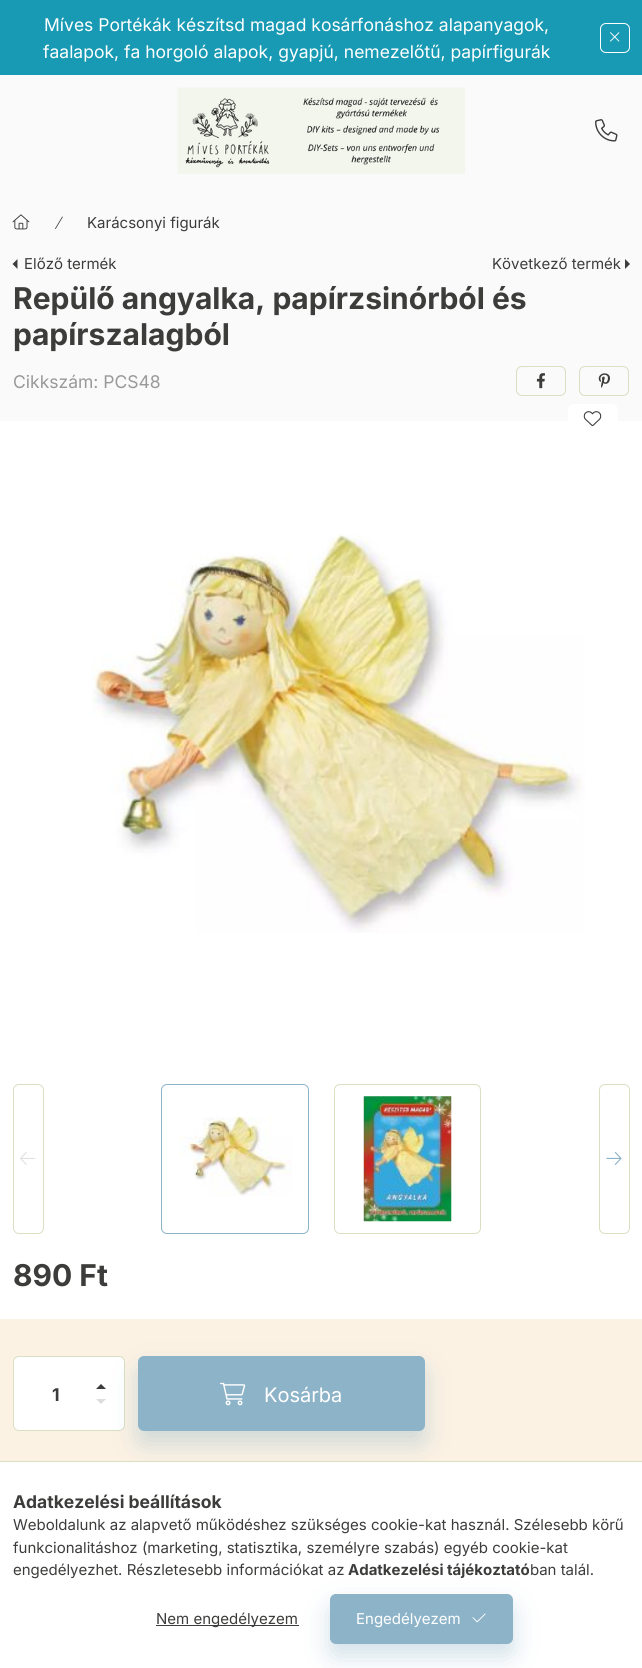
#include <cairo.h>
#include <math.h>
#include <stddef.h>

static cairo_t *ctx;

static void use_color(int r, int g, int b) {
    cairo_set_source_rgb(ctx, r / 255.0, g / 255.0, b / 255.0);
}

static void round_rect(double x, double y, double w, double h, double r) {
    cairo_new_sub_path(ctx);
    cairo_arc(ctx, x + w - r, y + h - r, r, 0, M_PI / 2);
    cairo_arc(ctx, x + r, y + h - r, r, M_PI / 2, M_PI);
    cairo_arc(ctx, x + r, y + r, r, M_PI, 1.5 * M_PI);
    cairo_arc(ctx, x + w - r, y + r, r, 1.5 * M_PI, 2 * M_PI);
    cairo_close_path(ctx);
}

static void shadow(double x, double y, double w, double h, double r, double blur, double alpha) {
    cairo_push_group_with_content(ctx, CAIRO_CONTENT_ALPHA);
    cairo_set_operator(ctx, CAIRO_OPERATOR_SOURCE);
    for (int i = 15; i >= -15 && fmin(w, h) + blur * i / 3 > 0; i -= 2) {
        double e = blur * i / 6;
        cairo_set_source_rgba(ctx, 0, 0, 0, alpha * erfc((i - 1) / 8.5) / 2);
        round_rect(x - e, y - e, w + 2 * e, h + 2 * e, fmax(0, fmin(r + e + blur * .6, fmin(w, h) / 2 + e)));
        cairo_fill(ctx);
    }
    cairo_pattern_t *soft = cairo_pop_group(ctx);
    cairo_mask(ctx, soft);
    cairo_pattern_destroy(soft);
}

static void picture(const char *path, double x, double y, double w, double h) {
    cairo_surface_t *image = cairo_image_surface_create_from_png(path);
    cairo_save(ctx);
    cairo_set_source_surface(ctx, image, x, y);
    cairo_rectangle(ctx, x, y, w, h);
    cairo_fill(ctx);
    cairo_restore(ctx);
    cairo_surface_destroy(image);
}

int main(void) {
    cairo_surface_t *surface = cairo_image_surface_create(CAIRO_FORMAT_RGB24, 642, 1668);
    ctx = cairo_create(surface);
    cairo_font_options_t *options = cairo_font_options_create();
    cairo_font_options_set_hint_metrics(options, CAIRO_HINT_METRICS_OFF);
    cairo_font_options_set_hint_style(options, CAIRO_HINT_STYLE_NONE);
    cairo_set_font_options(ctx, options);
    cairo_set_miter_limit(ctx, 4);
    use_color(250, 250, 250);
    cairo_paint(ctx);
    use_color(24, 154, 180);
    cairo_rectangle(ctx, 0, 0, 642, 75);
    cairo_fill(ctx);
    cairo_select_font_face(ctx, "Inter", CAIRO_FONT_SLANT_NORMAL, CAIRO_FONT_WEIGHT_NORMAL);
    cairo_set_font_size(ctx, 17.5);
    use_color(255, 255, 255);
    cairo_move_to(ctx, 44, 31);
    cairo_show_text(ctx, "Míves Portékák készítsd magad kosárfonáshoz alapanyagok,");
    cairo_move_to(ctx, 43, 58);
    cairo_show_text(ctx, "faalapok, fa horgoló alapok, gyapjú, nemezelőtű, papírfigurák");
    round_rect(600.5, 23.5, 29, 29, 5.5);
    cairo_set_line_width(ctx, 1);
    cairo_stroke(ctx);
    picture("img1.png", 610, 32, 10, 10);
    picture("img2.png", 177, 87, 288, 87);
    picture("img3.png", 595, 119, 23, 23);
    picture("img4.png", 12, 214, 18, 16);
    picture("img5.png", 55, 216, 8, 13);
    cairo_set_font_size(ctx, 15);
    use_color(60, 60, 59);
    cairo_move_to(ctx, 87, 228);
    cairo_show_text(ctx, "Karácsonyi figurák");
    cairo_new_path(ctx);
    cairo_move_to(ctx, 17.5, 269);
    cairo_line_to(ctx, 17.5, 259);
    cairo_line_to(ctx, 12.5, 264);
    cairo_close_path(ctx);
    cairo_fill(ctx);
    cairo_move_to(ctx, 24, 269);
    cairo_show_text(ctx, "Előző termék");
    cairo_move_to(ctx, 492, 269);
    cairo_show_text(ctx, "Következő termék");
    cairo_new_path(ctx);
    cairo_move_to(ctx, 625, 269);
    cairo_line_to(ctx, 625, 259);
    cairo_line_to(ctx, 630, 264);
    cairo_close_path(ctx);
    cairo_fill(ctx);
    cairo_select_font_face(ctx, "Inter", CAIRO_FONT_SLANT_NORMAL, CAIRO_FONT_WEIGHT_BOLD);
    cairo_set_font_size(ctx, 30);
    cairo_move_to(ctx, 13, 309);
    cairo_show_text(ctx, "Repülő angyalka, papírzsinórból és");
    cairo_move_to(ctx, 13, 345);
    cairo_show_text(ctx, "papírszalagból");
    cairo_select_font_face(ctx, "Inter", CAIRO_FONT_SLANT_NORMAL, CAIRO_FONT_WEIGHT_NORMAL);
    cairo_set_font_size(ctx, 17.5);
    use_color(153, 153, 153);
    cairo_move_to(ctx, 13, 388);
    cairo_show_text(ctx, "Cikkszám: PCS48");
    round_rect(516.5, 366.5, 49, 29, 5.5);
    use_color(216, 224, 194);
    cairo_stroke(ctx);
    picture("img6.png", 536, 373, 9, 16);
    round_rect(579.5, 366.5, 49, 29, 5.5);
    cairo_stroke(ctx);
    picture("img7.png", 598, 373, 12, 15);
    use_color(255, 255, 255);
    cairo_rectangle(ctx, 0, 421, 642, 898);
    cairo_fill(ctx);
    round_rect(568, 404, 50, 30, 6);
    cairo_fill(ctx);
    picture("img8.png", 583, 411, 19, 16);
    picture("img9.png", 92, 534, 493, 399);
    round_rect(13.5, 1084.5, 30, 149, 5.5);
    use_color(216, 224, 194);
    cairo_stroke(ctx);
    picture("img10.png", 20, 1152, 16, 13);
    round_rect(161.5, 1084.5, 147, 149, 5.5);
    use_color(141, 179, 200);
    cairo_stroke(ctx);
    picture("img11.png", 179, 1116, 113, 80);
    round_rect(334.5, 1084.5, 146, 149, 5.5);
    use_color(216, 224, 194);
    cairo_stroke(ctx);
    picture("img12.png", 363, 1096, 89, 126);
    round_rect(599.5, 1084.5, 30, 149, 5.5);
    cairo_stroke(ctx);
    picture("img13.png", 606, 1151, 16, 14);
    cairo_select_font_face(ctx, "Inter", CAIRO_FONT_SLANT_NORMAL, CAIRO_FONT_WEIGHT_BOLD);
    cairo_set_font_size(ctx, 30);
    use_color(60, 60, 59);
    cairo_move_to(ctx, 13, 1286);
    cairo_show_text(ctx, "890 Ft");
    use_color(252, 242, 227);
    cairo_rectangle(ctx, 0, 1319, 642, 142);
    cairo_fill(ctx);
    use_color(255, 255, 255);
    round_rect(13.5, 1356.5, 111, 74, 5.5);
    cairo_fill_preserve(ctx);
    use_color(216, 224, 194);
    cairo_stroke(ctx);
    cairo_set_font_size(ctx, 17.5);
    use_color(60, 60, 59);
    cairo_move_to(ctx, 52, 1401);
    cairo_show_text(ctx, "1");
    cairo_new_path(ctx);
    cairo_move_to(ctx, 106, 1389);
    cairo_line_to(ctx, 96, 1389);
    cairo_line_to(ctx, 101, 1384);
    cairo_close_path(ctx);
    cairo_fill(ctx);
    use_color(221, 221, 221);
    cairo_new_path(ctx);
    cairo_move_to(ctx, 96, 1399);
    cairo_line_to(ctx, 106, 1399);
    cairo_line_to(ctx, 101, 1404);
    cairo_close_path(ctx);
    cairo_fill(ctx);
    use_color(141, 179, 200);
    shadow(138, 1369, 287, 75, 6, 12.5, 0.4);
    use_color(141, 179, 200);
    round_rect(138, 1356, 287, 75, 6);
    cairo_fill(ctx);
    picture("img14.png", 220, 1382, 26, 24);
    cairo_select_font_face(ctx, "Inter", CAIRO_FONT_SLANT_NORMAL, CAIRO_FONT_WEIGHT_NORMAL);
    cairo_set_font_size(ctx, 20);
    use_color(255, 255, 255);
    cairo_move_to(ctx, 264, 1402);
    cairo_show_text(ctx, "Kosárba");
    cairo_rectangle(ctx, 0, 1462, 642, 206);
    cairo_fill(ctx);
    use_color(216, 224, 194);
    cairo_rectangle(ctx, 0, 1461, 642, 1);
    cairo_fill(ctx);
    cairo_select_font_face(ctx, "Inter", CAIRO_FONT_SLANT_NORMAL, CAIRO_FONT_WEIGHT_BOLD);
    cairo_set_font_size(ctx, 17.5);
    use_color(60, 60, 59);
    cairo_move_to(ctx, 13, 1508);
    cairo_show_text(ctx, "Adatkezelési beállítások");
    cairo_select_font_face(ctx, "Inter", CAIRO_FONT_SLANT_NORMAL, CAIRO_FONT_WEIGHT_NORMAL);
    cairo_set_font_size(ctx, 15);
    cairo_move_to(ctx, 13, 1530);
    cairo_show_text(ctx, "Weboldalunk az alapvető működéshez szükséges cookie-kat használ. Szélesebb körű");
    cairo_move_to(ctx, 13, 1553);
    cairo_show_text(ctx, "funkcionalitáshoz (marketing, statisztika, személyre szabás) egyéb cookie-kat");
    cairo_move_to(ctx, 13, 1575);
    cairo_show_text(ctx, "engedélyezhet. Részletesebb információkat az");
    cairo_select_font_face(ctx, "Inter", CAIRO_FONT_SLANT_NORMAL, CAIRO_FONT_WEIGHT_BOLD);
    cairo_move_to(ctx, 348, 1575);
    cairo_show_text(ctx, "Adatkezelési tájékoztató");
    cairo_select_font_face(ctx, "Inter", CAIRO_FONT_SLANT_NORMAL, CAIRO_FONT_WEIGHT_NORMAL);
    cairo_move_to(ctx, 530, 1575);
    cairo_show_text(ctx, "ban talál.");
    cairo_rectangle(ctx, 156, 1625, 143, 1);
    cairo_fill(ctx);
    cairo_move_to(ctx, 156, 1624);
    cairo_show_text(ctx, "Nem engedélyezem");
    use_color(141, 179, 200);
    shadow(330, 1606, 183, 50, 6, 12.5, 0.4);
    use_color(141, 179, 200);
    round_rect(330.5, 1594.5, 182, 49, 5.5);
    cairo_fill_preserve(ctx);
    cairo_stroke(ctx);
    use_color(255, 255, 255);
    cairo_move_to(ctx, 356, 1624);
    cairo_show_text(ctx, "Engedélyezem");
    picture("img15.png", 472, 1613, 14, 10);
    cairo_surface_write_to_png(surface, "result.png");
    cairo_font_options_destroy(options);
    cairo_destroy(ctx);
    cairo_surface_destroy(surface);
    return 0;
}
